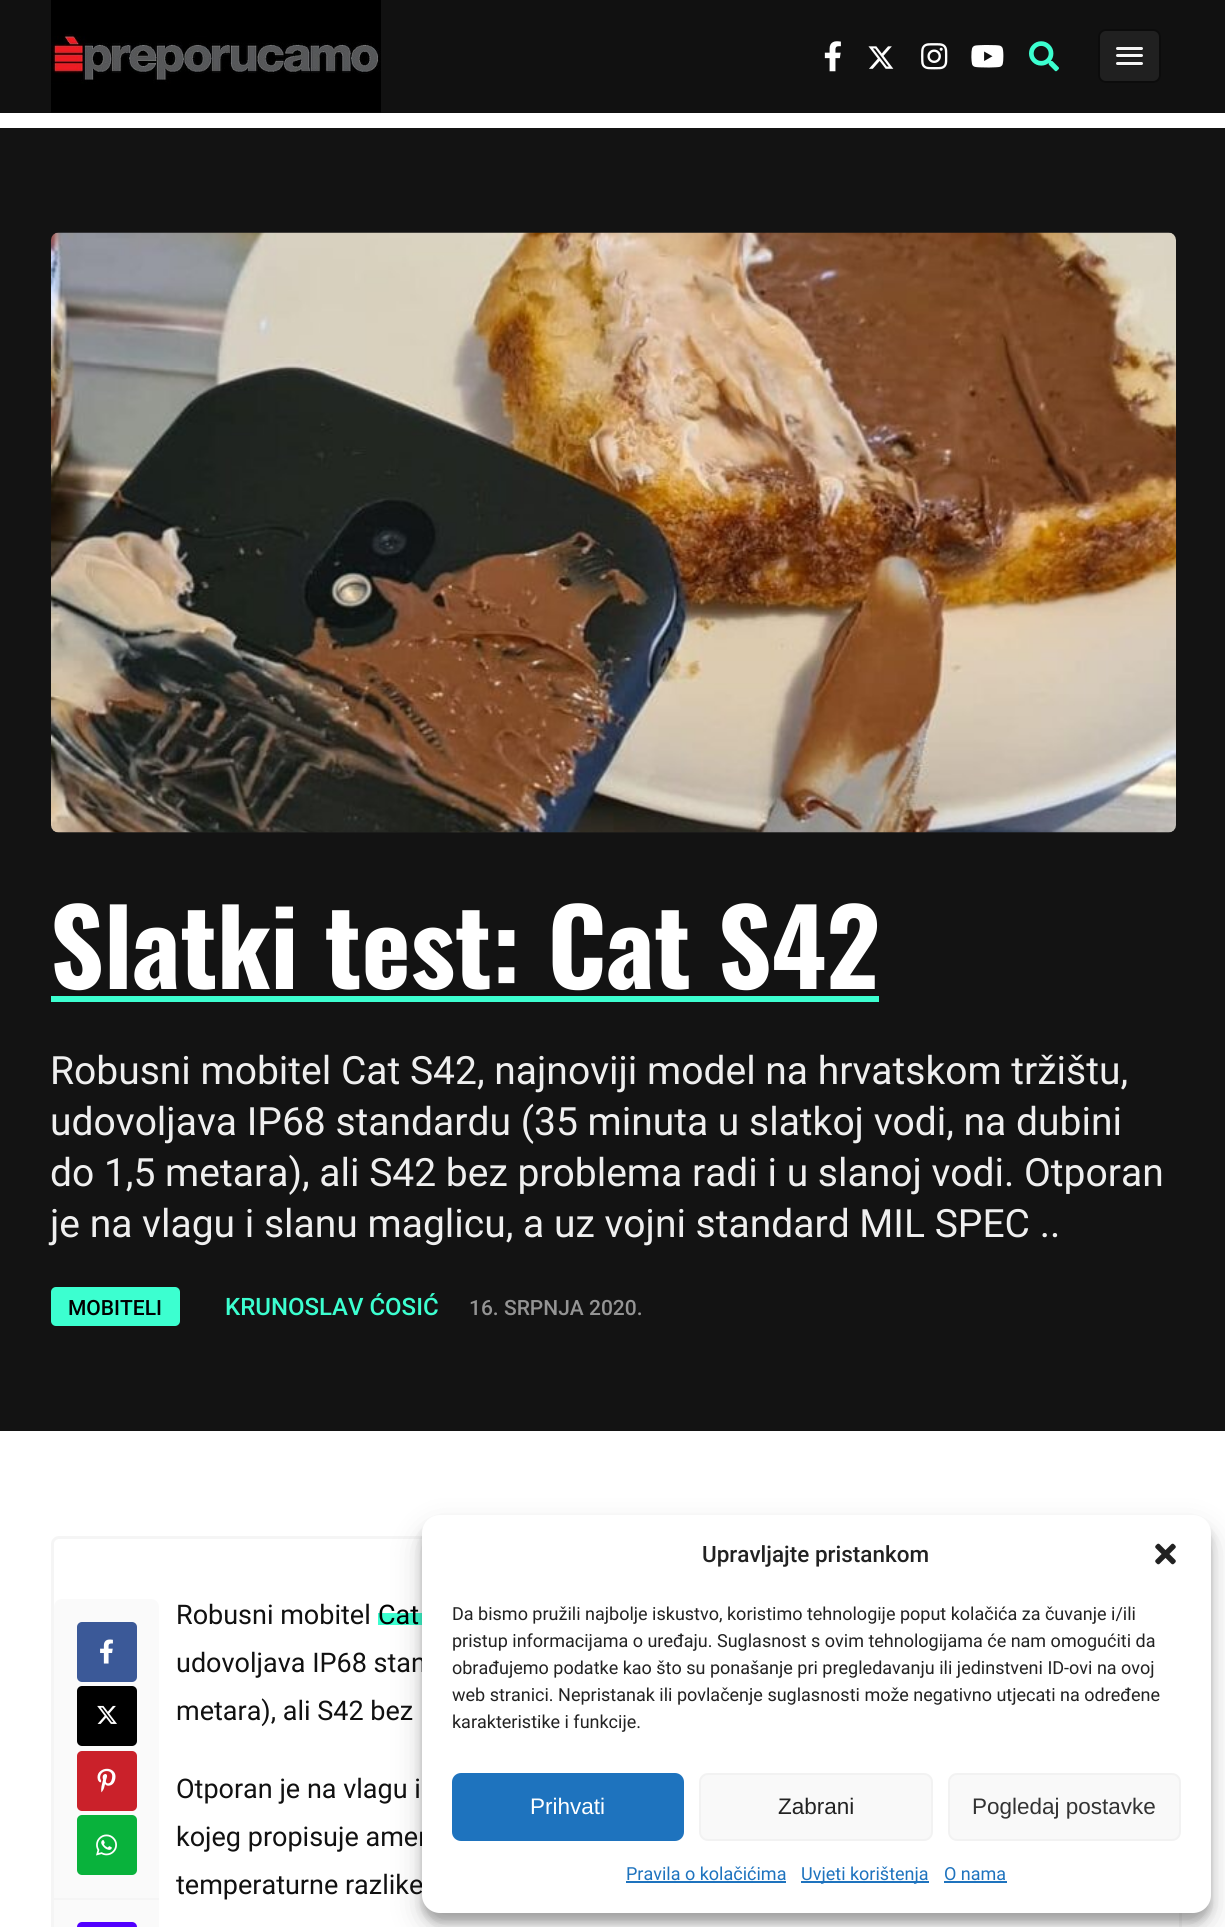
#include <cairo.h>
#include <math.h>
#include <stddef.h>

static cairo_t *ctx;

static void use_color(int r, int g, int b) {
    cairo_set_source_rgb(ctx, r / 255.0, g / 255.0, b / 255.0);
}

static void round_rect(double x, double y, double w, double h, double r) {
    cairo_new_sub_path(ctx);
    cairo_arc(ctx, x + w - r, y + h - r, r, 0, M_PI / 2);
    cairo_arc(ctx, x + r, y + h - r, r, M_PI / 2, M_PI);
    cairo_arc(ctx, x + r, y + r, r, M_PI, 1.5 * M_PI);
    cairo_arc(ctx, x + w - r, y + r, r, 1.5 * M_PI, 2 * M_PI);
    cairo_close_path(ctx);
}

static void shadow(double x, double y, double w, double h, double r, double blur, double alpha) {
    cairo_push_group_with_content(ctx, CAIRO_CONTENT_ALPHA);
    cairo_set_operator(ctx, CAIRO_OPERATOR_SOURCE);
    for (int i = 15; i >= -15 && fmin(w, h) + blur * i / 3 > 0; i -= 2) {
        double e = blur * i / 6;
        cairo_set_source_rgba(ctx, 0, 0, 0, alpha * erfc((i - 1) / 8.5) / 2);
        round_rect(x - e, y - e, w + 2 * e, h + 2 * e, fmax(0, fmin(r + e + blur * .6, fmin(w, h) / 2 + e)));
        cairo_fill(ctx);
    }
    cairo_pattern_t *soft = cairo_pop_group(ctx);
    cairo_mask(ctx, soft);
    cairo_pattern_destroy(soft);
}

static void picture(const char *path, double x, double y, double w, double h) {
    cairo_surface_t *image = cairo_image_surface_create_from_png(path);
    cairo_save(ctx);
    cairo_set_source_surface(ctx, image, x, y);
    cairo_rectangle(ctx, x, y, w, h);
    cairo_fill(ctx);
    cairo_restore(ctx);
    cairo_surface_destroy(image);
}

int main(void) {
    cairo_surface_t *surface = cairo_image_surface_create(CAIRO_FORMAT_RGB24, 1225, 1927);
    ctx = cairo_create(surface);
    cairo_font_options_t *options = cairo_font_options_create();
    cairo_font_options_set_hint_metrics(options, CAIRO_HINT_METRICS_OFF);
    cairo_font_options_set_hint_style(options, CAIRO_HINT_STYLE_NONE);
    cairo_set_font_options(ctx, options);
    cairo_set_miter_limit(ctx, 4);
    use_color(255, 255, 255);
    cairo_paint(ctx);
    use_color(17, 17, 17);
    cairo_rectangle(ctx, 0, 0, 1225, 113);
    cairo_fill(ctx);
    use_color(0, 0, 0);
    shadow(0, 114, 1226, 15, 0, 2, 0.2);
    picture("img1.png", 51, 0, 330, 113);
    picture("img2.png", 824, 41, 17, 31);
    picture("img3.png", 868, 46, 26, 23);
    picture("img4.png", 921, 43, 27, 27);
    picture("img5.png", 971, 45, 33, 23);
    picture("img6.png", 1029, 41, 30, 31);
    use_color(32, 32, 32);
    round_rect(1099, 30, 61, 52, 7);
    cairo_fill_preserve(ctx);
    use_color(12, 12, 12);
    cairo_stroke(ctx);
    use_color(24, 24, 24);
    cairo_new_path(ctx);
    cairo_move_to(ctx, 1116, 48.5);
    cairo_curve_to(ctx, 1114.5, 52, 1121.5, 51, 1121.5, 51);
    cairo_line_to(ctx, 1137.5, 51);
    cairo_curve_to(ctx, 1137.5, 51, 1144.5, 52, 1143, 48.5);
    cairo_curve_to(ctx, 1142.5, 49, 1142, 49.5, 1141.5, 49.5);
    cairo_line_to(ctx, 1117.5, 49.5);
    cairo_curve_to(ctx, 1117, 49.5, 1116.5, 49, 1116, 48.5);
    cairo_close_path(ctx);
    cairo_fill(ctx);
    use_color(245, 245, 245);
    round_rect(1116, 47, 27, 3, 1.5);
    cairo_fill(ctx);
    use_color(24, 24, 24);
    cairo_new_path(ctx);
    cairo_move_to(ctx, 1116.5, 56.5);
    cairo_line_to(ctx, 1116, 58);
    cairo_curve_to(ctx, 1116.5, 60, 1121, 59, 1121.5, 59);
    cairo_line_to(ctx, 1137.5, 59);
    cairo_curve_to(ctx, 1138, 59, 1142.5, 60, 1143, 58);
    cairo_line_to(ctx, 1142.5, 56.5);
    cairo_line_to(ctx, 1141.5, 57);
    cairo_line_to(ctx, 1117.5, 57);
    cairo_close_path(ctx);
    cairo_fill(ctx);
    use_color(245, 245, 245);
    round_rect(1116, 54, 27, 3, 1.5);
    cairo_fill(ctx);
    use_color(24, 24, 24);
    cairo_new_path(ctx);
    cairo_move_to(ctx, 1116, 63.5);
    cairo_curve_to(ctx, 1114.5, 67, 1121.5, 66, 1121.5, 66);
    cairo_line_to(ctx, 1137.5, 66);
    cairo_curve_to(ctx, 1137.5, 66, 1144.5, 67, 1143, 63.5);
    cairo_curve_to(ctx, 1142.5, 64, 1142, 64.5, 1141.5, 64.5);
    cairo_line_to(ctx, 1117.5, 64.5);
    cairo_curve_to(ctx, 1117, 64.5, 1116.5, 64, 1116, 63.5);
    cairo_close_path(ctx);
    cairo_fill(ctx);
    use_color(245, 245, 245);
    round_rect(1116, 62, 27, 3, 1.5);
    cairo_fill(ctx);
    use_color(255, 255, 255);
    cairo_rectangle(ctx, 0, 113, 1225, 15);
    cairo_fill(ctx);
    use_color(19, 19, 19);
    cairo_rectangle(ctx, 0, 128, 1225, 1303);
    cairo_fill(ctx);
    use_color(24, 24, 24);
    round_rect(51, 233, 1125, 600, 8);
    cairo_fill(ctx);
    picture("img7.png", 51, 232, 1125, 601);
    cairo_select_font_face(ctx, "Oswald", CAIRO_FONT_SLANT_NORMAL, CAIRO_FONT_WEIGHT_BOLD);
    cairo_set_font_size(ctx, 104.5);
    use_color(255, 255, 255);
    cairo_move_to(ctx, 50, 989);
    cairo_show_text(ctx, "Slatki test: Cat S42");
    use_color(60, 255, 208);
    cairo_rectangle(ctx, 51, 996, 828, 6);
    cairo_fill(ctx);
    cairo_select_font_face(ctx, "Roboto", CAIRO_FONT_SLANT_NORMAL, CAIRO_FONT_WEIGHT_NORMAL);
    cairo_set_font_size(ctx, 39);
    use_color(239, 239, 239);
    cairo_move_to(ctx, 50, 1084);
    cairo_show_text(ctx, "Robusni mobitel Cat S42, najnoviji model na hrvatskom tržištu,");
    cairo_move_to(ctx, 50, 1135);
    cairo_show_text(ctx, "udovoljava IP68 standardu (35 minuta u slatkoj vodi, na dubini");
    cairo_move_to(ctx, 50, 1186);
    cairo_show_text(ctx, "do 1,5 metara), ali S42 bez problema radi i u slanoj vodi. Otporan");
    cairo_move_to(ctx, 50, 1237);
    cairo_show_text(ctx, "je na vlagu i slanu maglicu, a uz vojni standard MIL SPEC ..");
    use_color(60, 255, 208);
    round_rect(51, 1287, 129, 39, 5);
    cairo_fill(ctx);
    cairo_select_font_face(ctx, "Roboto Medium", CAIRO_FONT_SLANT_NORMAL, CAIRO_FONT_WEIGHT_NORMAL);
    cairo_set_font_size(ctx, 21);
    use_color(0, 0, 0);
    cairo_move_to(ctx, 68, 1315);
    cairo_show_text(ctx, "MOBITELI");
    cairo_set_font_size(ctx, 24);
    use_color(60, 255, 208);
    cairo_move_to(ctx, 225, 1315);
    cairo_show_text(ctx, "KRUNOSLAV ĆOSIĆ");
    cairo_set_font_size(ctx, 21);
    use_color(148, 148, 148);
    cairo_move_to(ctx, 469, 1315);
    cairo_show_text(ctx, "16. SRPNJA 2020.");
    round_rect(52.5, 1537.5, 1128, 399, 6.5);
    use_color(245, 245, 245);
    cairo_set_line_width(ctx, 3);
    cairo_stroke(ctx);
    use_color(250, 250, 250);
    round_rect(54, 1599, 105, 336, 8);
    cairo_fill(ctx);
    use_color(59, 89, 152);
    round_rect(77, 1622, 60, 60, 5);
    cairo_fill(ctx);
    picture("img8.png", 100, 1639, 13, 25);
    use_color(0, 0, 0);
    round_rect(77, 1686, 60, 60, 5);
    cairo_fill(ctx);
    picture("img9.png", 97, 1705, 20, 19);
    use_color(202, 33, 42);
    round_rect(77, 1751, 60, 60, 5);
    cairo_fill(ctx);
    picture("img10.png", 97, 1768, 19, 25);
    use_color(9, 178, 60);
    round_rect(77, 1815, 60, 60, 5);
    cairo_fill(ctx);
    picture("img11.png", 96, 1834, 21, 22);
    use_color(245, 245, 245);
    cairo_rectangle(ctx, 54, 1898, 105, 2);
    cairo_fill(ctx);
    use_color(82, 0, 255);
    round_rect(77, 1922, 60, 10, 5);
    cairo_fill(ctx);
    cairo_select_font_face(ctx, "Roboto", CAIRO_FONT_SLANT_NORMAL, CAIRO_FONT_WEIGHT_NORMAL);
    cairo_set_font_size(ctx, 27);
    use_color(17, 17, 17);
    cairo_move_to(ctx, 176, 1624);
    cairo_show_text(ctx, "Robusni mobitel");
    use_color(60, 255, 208);
    cairo_rectangle(ctx, 378, 1613, 44, 12);
    cairo_fill(ctx);
    use_color(0, 0, 0);
    cairo_move_to(ctx, 378, 1624);
    cairo_show_text(ctx, "Cat");
    use_color(17, 17, 17);
    cairo_move_to(ctx, 176, 1672);
    cairo_show_text(ctx, "udovoljava IP68 stan");
    cairo_move_to(ctx, 176, 1720);
    cairo_show_text(ctx, "metara), ali S42 bez");
    cairo_move_to(ctx, 176, 1798);
    cairo_show_text(ctx, "Otporan je na vlagu i");
    cairo_move_to(ctx, 176, 1846);
    cairo_show_text(ctx, "kojeg propisuje amer");
    cairo_move_to(ctx, 176, 1894);
    cairo_show_text(ctx, "temperaturne razlike");
    use_color(0, 0, 0);
    shadow(422, 1524, 789, 398, 18, 4.5, 0.23);
    shadow(422, 1530, 789, 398, 18, 15, 0.19);
    use_color(255, 255, 255);
    round_rect(422, 1515, 789, 398, 18);
    cairo_fill(ctx);
    cairo_select_font_face(ctx, "Roboto Medium", CAIRO_FONT_SLANT_NORMAL, CAIRO_FONT_WEIGHT_NORMAL);
    cairo_set_font_size(ctx, 22.5);
    use_color(34, 34, 34);
    cairo_move_to(ctx, 702, 1562);
    cairo_show_text(ctx, "Upravljajte pristankom");
    picture("img12.png", 1155, 1543, 21, 22);
    cairo_select_font_face(ctx, "Roboto", CAIRO_FONT_SLANT_NORMAL, CAIRO_FONT_WEIGHT_NORMAL);
    cairo_set_font_size(ctx, 18);
    cairo_move_to(ctx, 452, 1620);
    cairo_show_text(ctx, "Da bismo pružili najbolje iskustvo, koristimo tehnologije poput kolačića za čuvanje i/ili");
    cairo_move_to(ctx, 452, 1647);
    cairo_show_text(ctx, "pristup informacijama o uređaju. Suglasnost s ovim tehnologijama će nam omogućiti da");
    cairo_move_to(ctx, 452, 1674);
    cairo_show_text(ctx, "obrađujemo podatke kao što su ponašanje pri pregledavanju ili jedinstveni ID-ovi na ovoj");
    cairo_move_to(ctx, 452, 1701);
    cairo_show_text(ctx, "web stranici. Nepristanak ili povlačenje suglasnosti može negativno utjecati na određene");
    cairo_move_to(ctx, 452, 1728);
    cairo_show_text(ctx, "karakteristike i funkcije.");
    use_color(30, 115, 190);
    round_rect(453, 1774, 230, 66, 8);
    cairo_fill_preserve(ctx);
    cairo_set_line_width(ctx, 2);
    cairo_stroke(ctx);
    cairo_select_font_face(ctx, "Liberation Sans", CAIRO_FONT_SLANT_NORMAL, CAIRO_FONT_WEIGHT_NORMAL);
    cairo_set_font_size(ctx, 22.5);
    use_color(255, 255, 255);
    cairo_move_to(ctx, 530, 1814);
    cairo_show_text(ctx, "Prihvati");
    use_color(249, 249, 249);
    round_rect(700, 1774, 232, 66, 8);
    cairo_fill_preserve(ctx);
    use_color(242, 242, 242);
    cairo_stroke(ctx);
    use_color(34, 34, 34);
    cairo_move_to(ctx, 778, 1814);
    cairo_show_text(ctx, "Zabrani");
    use_color(249, 249, 249);
    round_rect(949, 1774, 231, 66, 8);
    cairo_fill_preserve(ctx);
    use_color(242, 242, 242);
    cairo_stroke(ctx);
    use_color(51, 51, 51);
    cairo_move_to(ctx, 972, 1814);
    cairo_show_text(ctx, "Pogledaj postavke");
    cairo_select_font_face(ctx, "Roboto", CAIRO_FONT_SLANT_NORMAL, CAIRO_FONT_WEIGHT_NORMAL);
    cairo_set_font_size(ctx, 18);
    use_color(30, 115, 190);
    cairo_move_to(ctx, 626, 1880);
    cairo_show_text(ctx, "Pravila o kolačićima");
    cairo_rectangle(ctx, 626, 1881, 160, 2);
    cairo_fill(ctx);
    cairo_rectangle(ctx, 801, 1881, 128, 2);
    cairo_fill(ctx);
    cairo_move_to(ctx, 801, 1880);
    cairo_show_text(ctx, "Uvjeti korištenja");
    cairo_move_to(ctx, 944, 1880);
    cairo_show_text(ctx, "O nama");
    cairo_rectangle(ctx, 944, 1881, 63, 2);
    cairo_fill(ctx);
    cairo_surface_write_to_png(surface, "result.png");
    cairo_font_options_destroy(options);
    cairo_destroy(ctx);
    cairo_surface_destroy(surface);
    return 0;
}
